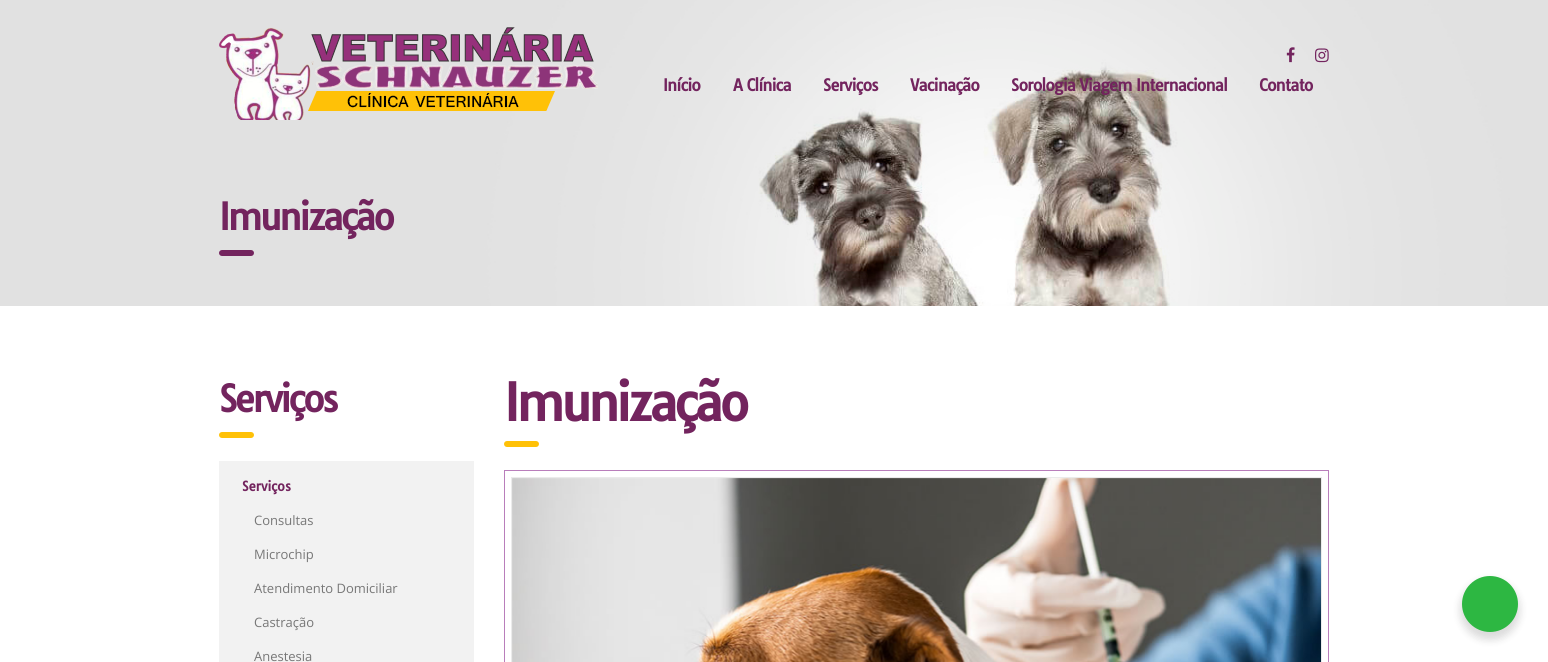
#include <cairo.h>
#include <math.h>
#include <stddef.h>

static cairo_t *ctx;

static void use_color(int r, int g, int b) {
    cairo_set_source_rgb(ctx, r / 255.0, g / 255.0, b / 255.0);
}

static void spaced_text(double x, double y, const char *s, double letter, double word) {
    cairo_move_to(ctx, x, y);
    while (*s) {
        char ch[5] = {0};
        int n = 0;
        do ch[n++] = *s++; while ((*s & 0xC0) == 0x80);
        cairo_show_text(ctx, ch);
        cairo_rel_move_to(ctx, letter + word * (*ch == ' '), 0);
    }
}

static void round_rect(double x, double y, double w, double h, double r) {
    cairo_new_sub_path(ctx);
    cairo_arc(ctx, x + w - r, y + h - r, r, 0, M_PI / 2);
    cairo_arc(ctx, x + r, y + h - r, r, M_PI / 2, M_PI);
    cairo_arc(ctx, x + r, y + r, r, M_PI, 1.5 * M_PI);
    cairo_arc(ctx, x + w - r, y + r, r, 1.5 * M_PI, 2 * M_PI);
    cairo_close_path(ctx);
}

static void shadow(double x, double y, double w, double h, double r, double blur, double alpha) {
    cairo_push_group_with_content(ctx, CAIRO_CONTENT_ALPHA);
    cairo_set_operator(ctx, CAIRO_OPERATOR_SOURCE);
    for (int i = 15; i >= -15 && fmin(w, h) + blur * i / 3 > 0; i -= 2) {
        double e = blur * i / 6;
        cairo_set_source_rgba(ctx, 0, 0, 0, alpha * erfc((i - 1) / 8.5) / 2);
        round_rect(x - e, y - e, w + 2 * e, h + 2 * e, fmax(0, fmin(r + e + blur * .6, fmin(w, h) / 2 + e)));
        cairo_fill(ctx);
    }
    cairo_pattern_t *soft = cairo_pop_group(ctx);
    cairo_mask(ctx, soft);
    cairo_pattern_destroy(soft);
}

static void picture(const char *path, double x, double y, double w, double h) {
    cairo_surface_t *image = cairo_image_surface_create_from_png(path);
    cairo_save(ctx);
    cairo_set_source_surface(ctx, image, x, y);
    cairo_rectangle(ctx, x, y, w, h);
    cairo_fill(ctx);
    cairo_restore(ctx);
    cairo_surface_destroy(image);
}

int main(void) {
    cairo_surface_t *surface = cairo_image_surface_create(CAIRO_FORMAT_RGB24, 1548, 662);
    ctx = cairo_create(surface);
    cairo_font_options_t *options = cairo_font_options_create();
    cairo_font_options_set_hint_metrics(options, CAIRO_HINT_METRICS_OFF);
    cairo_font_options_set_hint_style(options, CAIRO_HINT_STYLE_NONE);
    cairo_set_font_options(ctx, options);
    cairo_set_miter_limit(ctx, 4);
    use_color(255, 255, 255);
    cairo_paint(ctx);
    picture("img1.png", 0, 0, 1548, 140);
    picture("img2.png", 219, 27, 379, 93);
    picture("img3.png", 1286, 47, 9, 16);
    picture("img4.png", 1315, 48, 14, 15);
    cairo_select_font_face(ctx, "Tauri", CAIRO_FONT_SLANT_NORMAL, CAIRO_FONT_WEIGHT_BOLD);
    cairo_set_font_size(ctx, 16);
    use_color(115, 36, 94);
    spaced_text(663, 91, "Início", -0.65, 0);
    spaced_text(733, 91, "A Clínica", -0.65, 0);
    spaced_text(823, 91, "Serviços", -0.65, 0);
    spaced_text(910, 91, "Vacinação", -0.65, 0);
    spaced_text(1011, 91, "Sorologia Viagem Internacional", -0.65, 0);
    spaced_text(1259, 91, "Contato", -0.65, 0);
    picture("img5.png", 0, 140, 1548, 166);
    cairo_set_font_size(ctx, 36);
    spaced_text(219, 230, "Imunização", -2.25, 0);
    round_rect(219, 250, 35, 6, 3);
    cairo_fill(ctx);
    spaced_text(219, 412, "Serviços", -2.25, 0);
    use_color(255, 193, 7);
    round_rect(219, 432, 35, 6, 3);
    cairo_fill(ctx);
    use_color(242, 242, 242);
    cairo_rectangle(ctx, 219, 461, 255, 201);
    cairo_fill(ctx);
    cairo_set_font_size(ctx, 13);
    use_color(115, 36, 94);
    cairo_move_to(ctx, 242, 491);
    cairo_show_text(ctx, "Serviços");
    cairo_select_font_face(ctx, "Open Sans", CAIRO_FONT_SLANT_NORMAL, CAIRO_FONT_WEIGHT_NORMAL);
    use_color(119, 119, 119);
    cairo_move_to(ctx, 254, 525);
    cairo_show_text(ctx, "Consultas");
    cairo_move_to(ctx, 254, 559);
    cairo_show_text(ctx, "Microchip");
    cairo_move_to(ctx, 254, 593);
    cairo_show_text(ctx, "Atendimento Domiciliar");
    cairo_move_to(ctx, 254, 627);
    cairo_show_text(ctx, "Castração");
    cairo_move_to(ctx, 254, 661);
    cairo_show_text(ctx, "Anestesia");
    cairo_select_font_face(ctx, "Tauri", CAIRO_FONT_SLANT_NORMAL, CAIRO_FONT_WEIGHT_BOLD);
    cairo_set_font_size(ctx, 50);
    use_color(115, 36, 94);
    spaced_text(504, 421, "Imunização", -3, 0);
    use_color(255, 193, 7);
    round_rect(504, 441, 35, 6, 3);
    cairo_fill(ctx);
    cairo_rectangle(ctx, 504.5, 470.5, 824, 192);
    use_color(185, 126, 187);
    cairo_set_line_width(ctx, 1);
    cairo_stroke(ctx);
    cairo_rectangle(ctx, 511.5, 477.5, 810, 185);
    use_color(235, 235, 235);
    cairo_stroke(ctx);
    picture("img6.png", 512, 478, 809, 184);
    use_color(0, 0, 0);
    shadow(1460, 580, 60, 60, 30, 4, 0.14);
    use_color(45, 183, 66);
    cairo_arc(ctx, 1490, 604, 28, 0, 2 * M_PI);
    cairo_fill(ctx);
    cairo_surface_write_to_png(surface, "result.png");
    cairo_font_options_destroy(options);
    cairo_destroy(ctx);
    cairo_surface_destroy(surface);
    return 0;
}
